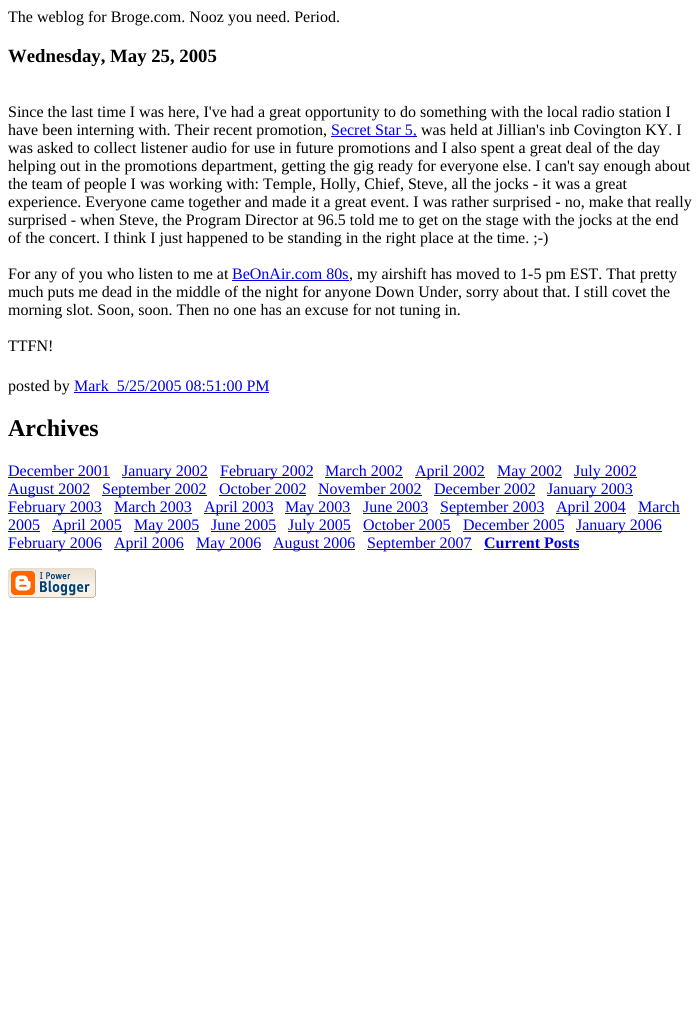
#include <cairo.h>
#include <math.h>
#include <stddef.h>

static cairo_t *ctx;

static void use_color(int r, int g, int b) {
    cairo_set_source_rgb(ctx, r / 255.0, g / 255.0, b / 255.0);
}

static void picture(const char *path, double x, double y, double w, double h) {
    cairo_surface_t *image = cairo_image_surface_create_from_png(path);
    cairo_save(ctx);
    cairo_set_source_surface(ctx, image, x, y);
    cairo_rectangle(ctx, x, y, w, h);
    cairo_fill(ctx);
    cairo_restore(ctx);
    cairo_surface_destroy(image);
}

int main(void) {
    cairo_surface_t *surface = cairo_image_surface_create(CAIRO_FORMAT_RGB24, 700, 1016);
    ctx = cairo_create(surface);
    cairo_font_options_t *options = cairo_font_options_create();
    cairo_font_options_set_hint_metrics(options, CAIRO_HINT_METRICS_OFF);
    cairo_font_options_set_hint_style(options, CAIRO_HINT_STYLE_NONE);
    cairo_set_font_options(ctx, options);
    cairo_set_miter_limit(ctx, 4);
    use_color(255, 255, 255);
    cairo_paint(ctx);
    cairo_select_font_face(ctx, "Liberation Serif", CAIRO_FONT_SLANT_NORMAL, CAIRO_FONT_WEIGHT_NORMAL);
    cairo_set_font_size(ctx, 16);
    use_color(0, 0, 0);
    cairo_move_to(ctx, 8, 22);
    cairo_show_text(ctx, "The weblog for Broge.com. Nooz you need. Period.");
    cairo_select_font_face(ctx, "Liberation Serif", CAIRO_FONT_SLANT_NORMAL, CAIRO_FONT_WEIGHT_BOLD);
    cairo_set_font_size(ctx, 18.75);
    cairo_move_to(ctx, 8, 62);
    cairo_show_text(ctx, "Wednesday, May 25, 2005");
    cairo_select_font_face(ctx, "Liberation Serif", CAIRO_FONT_SLANT_NORMAL, CAIRO_FONT_WEIGHT_NORMAL);
    cairo_set_font_size(ctx, 16);
    cairo_move_to(ctx, 8, 117);
    cairo_show_text(ctx, "Since the last time I was here, I've had a great opportunity to do something with the local radio station I");
    cairo_move_to(ctx, 8, 135);
    cairo_show_text(ctx, "have been interning with. Their recent promotion,");
    use_color(0, 0, 238);
    cairo_rectangle(ctx, 331, 136, 86, 1);
    cairo_fill(ctx);
    cairo_move_to(ctx, 331, 135);
    cairo_show_text(ctx, "Secret Star 5,");
    use_color(0, 0, 0);
    cairo_move_to(ctx, 421, 135);
    cairo_show_text(ctx, "was held at Jillian's inb Covington KY. I");
    cairo_move_to(ctx, 8, 153);
    cairo_show_text(ctx, "was asked to collect listener audio for use in future promotions and I also spent a great deal of the day");
    cairo_move_to(ctx, 8, 171);
    cairo_show_text(ctx, "helping out in the promotions department, getting the gig ready for everyone else. I can't say enough about");
    cairo_move_to(ctx, 8, 189);
    cairo_show_text(ctx, "the team of people I was working with: Temple, Holly, Chief, Steve, all the jocks - it was a great");
    cairo_move_to(ctx, 8, 207);
    cairo_show_text(ctx, "experience. Everyone came together and made it a great event. I was rather surprised - no, make that really");
    cairo_move_to(ctx, 8, 225);
    cairo_show_text(ctx, "surprised - when Steve, the Program Director at 96.5 told me to get on the stage with the jocks at the end");
    cairo_move_to(ctx, 8, 243);
    cairo_show_text(ctx, "of the concert. I think I just happened to be standing in the right place at the time. ;-)");
    cairo_move_to(ctx, 8, 279);
    cairo_show_text(ctx, "For any of you who listen to me at");
    use_color(0, 0, 238);
    cairo_move_to(ctx, 232, 279);
    cairo_show_text(ctx, "BeOnAir.com 80s");
    cairo_rectangle(ctx, 232, 280, 117, 1);
    cairo_fill(ctx);
    use_color(0, 0, 0);
    cairo_move_to(ctx, 349, 279);
    cairo_show_text(ctx, ", my airshift has moved to 1-5 pm EST. That pretty");
    cairo_move_to(ctx, 8, 297);
    cairo_show_text(ctx, "much puts me dead in the middle of the night for anyone Down Under, sorry about that. I still covet the");
    cairo_move_to(ctx, 8, 315);
    cairo_show_text(ctx, "morning slot. Soon, soon. Then no one has an excuse for not tuning in.");
    cairo_move_to(ctx, 8, 351);
    cairo_show_text(ctx, "TTFN!");
    cairo_move_to(ctx, 8, 391);
    cairo_show_text(ctx, "posted by");
    use_color(0, 0, 238);
    cairo_move_to(ctx, 74, 391);
    cairo_show_text(ctx, "Mark  5/25/2005 08:51:00 PM");
    cairo_rectangle(ctx, 74, 392, 195, 1);
    cairo_fill(ctx);
    cairo_select_font_face(ctx, "Liberation Serif", CAIRO_FONT_SLANT_NORMAL, CAIRO_FONT_WEIGHT_BOLD);
    cairo_set_font_size(ctx, 24);
    use_color(0, 0, 0);
    cairo_move_to(ctx, 8, 436);
    cairo_show_text(ctx, "Archives");
    cairo_select_font_face(ctx, "Liberation Serif", CAIRO_FONT_SLANT_NORMAL, CAIRO_FONT_WEIGHT_NORMAL);
    cairo_set_font_size(ctx, 16);
    use_color(0, 0, 238);
    cairo_move_to(ctx, 8, 476);
    cairo_show_text(ctx, "December 2001");
    cairo_rectangle(ctx, 8, 477, 102, 1);
    cairo_fill(ctx);
    cairo_rectangle(ctx, 122, 477, 86, 1);
    cairo_fill(ctx);
    cairo_move_to(ctx, 122, 476);
    cairo_show_text(ctx, "January 2002");
    cairo_rectangle(ctx, 220, 477, 93, 1);
    cairo_fill(ctx);
    cairo_move_to(ctx, 220, 476);
    cairo_show_text(ctx, "February 2002");
    cairo_move_to(ctx, 325, 476);
    cairo_show_text(ctx, "March 2002");
    cairo_rectangle(ctx, 325, 477, 78, 1);
    cairo_fill(ctx);
    cairo_rectangle(ctx, 415, 477, 70, 1);
    cairo_fill(ctx);
    cairo_move_to(ctx, 415, 476);
    cairo_show_text(ctx, "April 2002");
    cairo_rectangle(ctx, 497, 477, 65, 1);
    cairo_fill(ctx);
    cairo_move_to(ctx, 497, 476);
    cairo_show_text(ctx, "May 2002");
    cairo_rectangle(ctx, 574, 477, 63, 1);
    cairo_fill(ctx);
    cairo_move_to(ctx, 574, 476);
    cairo_show_text(ctx, "July 2002");
    cairo_rectangle(ctx, 8, 495, 82, 1);
    cairo_fill(ctx);
    cairo_move_to(ctx, 8, 494);
    cairo_show_text(ctx, "August 2002");
    cairo_rectangle(ctx, 102, 495, 105, 1);
    cairo_fill(ctx);
    cairo_move_to(ctx, 102, 494);
    cairo_show_text(ctx, "September 2002");
    cairo_move_to(ctx, 219, 494);
    cairo_show_text(ctx, "October 2002");
    cairo_rectangle(ctx, 219, 495, 87, 1);
    cairo_fill(ctx);
    cairo_move_to(ctx, 318, 494);
    cairo_show_text(ctx, "November 2002");
    cairo_rectangle(ctx, 318, 495, 104, 1);
    cairo_fill(ctx);
    cairo_move_to(ctx, 434, 494);
    cairo_show_text(ctx, "December 2002");
    cairo_rectangle(ctx, 434, 495, 101, 1);
    cairo_fill(ctx);
    cairo_rectangle(ctx, 547, 495, 86, 1);
    cairo_fill(ctx);
    cairo_move_to(ctx, 547, 494);
    cairo_show_text(ctx, "January 2003");
    cairo_rectangle(ctx, 8, 513, 94, 1);
    cairo_fill(ctx);
    cairo_move_to(ctx, 8, 512);
    cairo_show_text(ctx, "February 2003");
    cairo_move_to(ctx, 114, 512);
    cairo_show_text(ctx, "March 2003");
    cairo_rectangle(ctx, 114, 513, 78, 1);
    cairo_fill(ctx);
    cairo_rectangle(ctx, 204, 513, 69, 1);
    cairo_fill(ctx);
    cairo_move_to(ctx, 204, 512);
    cairo_show_text(ctx, "April 2003");
    cairo_rectangle(ctx, 285, 513, 66, 1);
    cairo_fill(ctx);
    cairo_move_to(ctx, 285, 512);
    cairo_show_text(ctx, "May 2003");
    cairo_move_to(ctx, 363, 512);
    cairo_show_text(ctx, "June 2003");
    cairo_rectangle(ctx, 363, 513, 65, 1);
    cairo_fill(ctx);
    cairo_rectangle(ctx, 440, 513, 104, 1);
    cairo_fill(ctx);
    cairo_move_to(ctx, 440, 512);
    cairo_show_text(ctx, "September 2003");
    cairo_rectangle(ctx, 556, 513, 70, 1);
    cairo_fill(ctx);
    cairo_move_to(ctx, 556, 512);
    cairo_show_text(ctx, "April 2004");
    cairo_move_to(ctx, 638, 512);
    cairo_show_text(ctx, "March");
    cairo_rectangle(ctx, 638, 513, 42, 1);
    cairo_fill(ctx);
    cairo_move_to(ctx, 8, 530);
    cairo_show_text(ctx, "2005");
    cairo_rectangle(ctx, 8, 531, 32, 1);
    cairo_fill(ctx);
    cairo_rectangle(ctx, 52, 531, 70, 1);
    cairo_fill(ctx);
    cairo_move_to(ctx, 52, 530);
    cairo_show_text(ctx, "April 2005");
    cairo_rectangle(ctx, 134, 531, 65, 1);
    cairo_fill(ctx);
    cairo_move_to(ctx, 134, 530);
    cairo_show_text(ctx, "May 2005");
    cairo_move_to(ctx, 211, 530);
    cairo_show_text(ctx, "June 2005");
    cairo_rectangle(ctx, 211, 531, 65, 1);
    cairo_fill(ctx);
    cairo_rectangle(ctx, 288, 531, 63, 1);
    cairo_fill(ctx);
    cairo_move_to(ctx, 288, 530);
    cairo_show_text(ctx, "July 2005");
    cairo_move_to(ctx, 363, 530);
    cairo_show_text(ctx, "October 2005");
    cairo_rectangle(ctx, 363, 531, 88, 1);
    cairo_fill(ctx);
    cairo_move_to(ctx, 463, 530);
    cairo_show_text(ctx, "December 2005");
    cairo_rectangle(ctx, 463, 531, 101, 1);
    cairo_fill(ctx);
    cairo_rectangle(ctx, 576, 531, 86, 1);
    cairo_fill(ctx);
    cairo_move_to(ctx, 576, 530);
    cairo_show_text(ctx, "January 2006");
    cairo_rectangle(ctx, 8, 549, 94, 1);
    cairo_fill(ctx);
    cairo_move_to(ctx, 8, 548);
    cairo_show_text(ctx, "February 2006");
    cairo_rectangle(ctx, 114, 549, 70, 1);
    cairo_fill(ctx);
    cairo_move_to(ctx, 114, 548);
    cairo_show_text(ctx, "April 2006");
    cairo_rectangle(ctx, 196, 549, 65, 1);
    cairo_fill(ctx);
    cairo_move_to(ctx, 196, 548);
    cairo_show_text(ctx, "May 2006");
    cairo_rectangle(ctx, 273, 549, 82, 1);
    cairo_fill(ctx);
    cairo_move_to(ctx, 273, 548);
    cairo_show_text(ctx, "August 2006");
    cairo_rectangle(ctx, 367, 549, 105, 1);
    cairo_fill(ctx);
    cairo_move_to(ctx, 367, 548);
    cairo_show_text(ctx, "September 2007");
    cairo_select_font_face(ctx, "Liberation Serif", CAIRO_FONT_SLANT_NORMAL, CAIRO_FONT_WEIGHT_BOLD);
    cairo_move_to(ctx, 484, 548);
    cairo_show_text(ctx, "Current Posts");
    cairo_rectangle(ctx, 484, 549, 95, 1);
    cairo_fill(ctx);
    picture("img1.png", 8, 568, 88, 30);
    cairo_surface_write_to_png(surface, "result.png");
    cairo_font_options_destroy(options);
    cairo_destroy(ctx);
    cairo_surface_destroy(surface);
    return 0;
}
